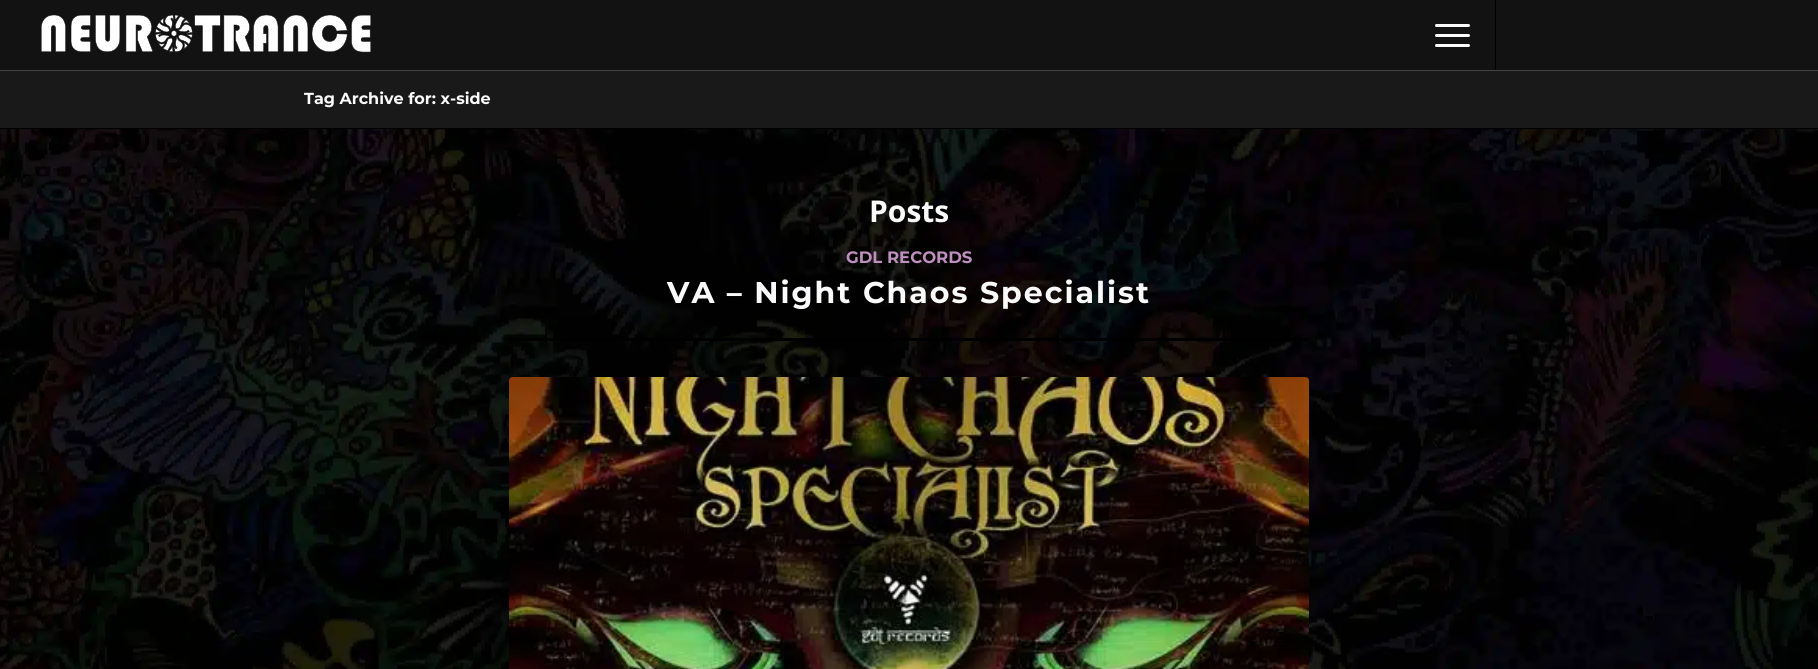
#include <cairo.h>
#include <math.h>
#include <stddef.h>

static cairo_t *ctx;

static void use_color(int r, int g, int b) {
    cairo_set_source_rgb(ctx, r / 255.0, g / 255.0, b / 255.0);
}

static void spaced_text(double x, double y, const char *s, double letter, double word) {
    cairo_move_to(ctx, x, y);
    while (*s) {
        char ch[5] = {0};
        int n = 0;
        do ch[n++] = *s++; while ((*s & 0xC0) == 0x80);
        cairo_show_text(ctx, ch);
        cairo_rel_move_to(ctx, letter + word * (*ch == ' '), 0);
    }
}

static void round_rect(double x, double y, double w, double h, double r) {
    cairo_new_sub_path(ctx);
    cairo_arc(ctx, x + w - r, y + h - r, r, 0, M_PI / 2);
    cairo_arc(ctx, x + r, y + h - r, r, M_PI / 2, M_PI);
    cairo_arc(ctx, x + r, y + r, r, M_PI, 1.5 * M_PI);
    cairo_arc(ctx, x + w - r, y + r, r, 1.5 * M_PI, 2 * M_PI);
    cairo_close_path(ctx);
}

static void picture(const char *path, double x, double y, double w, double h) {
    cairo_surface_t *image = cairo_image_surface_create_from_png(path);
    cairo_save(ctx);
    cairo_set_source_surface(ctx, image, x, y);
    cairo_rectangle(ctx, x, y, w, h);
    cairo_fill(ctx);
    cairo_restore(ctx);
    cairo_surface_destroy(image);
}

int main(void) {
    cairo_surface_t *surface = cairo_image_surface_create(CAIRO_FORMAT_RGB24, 1818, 669);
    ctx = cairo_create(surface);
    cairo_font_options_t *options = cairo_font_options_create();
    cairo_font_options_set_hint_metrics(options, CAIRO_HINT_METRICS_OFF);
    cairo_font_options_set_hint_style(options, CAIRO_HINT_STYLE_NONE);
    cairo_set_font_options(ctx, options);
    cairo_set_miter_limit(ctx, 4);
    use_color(19, 18, 19);
    cairo_paint(ctx);
    picture("img1.png", 41, 14, 330, 39);
    use_color(0, 0, 0);
    cairo_rectangle(ctx, 1495, 0, 1, 70);
    cairo_fill(ctx);
    use_color(250, 250, 250);
    round_rect(1435, 34, 35, 3, 1.5);
    cairo_fill(ctx);
    round_rect(1435, 24, 35, 3, 1.5);
    cairo_fill(ctx);
    round_rect(1435, 44, 35, 3, 1.5);
    cairo_fill(ctx);
    use_color(25, 25, 25);
    cairo_rectangle(ctx, 0, 71, 1818, 57);
    cairo_fill(ctx);
    use_color(68, 68, 68);
    cairo_rectangle(ctx, 0, 70, 1818, 1);
    cairo_fill(ctx);
    cairo_select_font_face(ctx, "Montserrat", CAIRO_FONT_SLANT_NORMAL, CAIRO_FONT_WEIGHT_BOLD);
    cairo_set_font_size(ctx, 16);
    use_color(250, 250, 250);
    cairo_move_to(ctx, 304, 104);
    cairo_show_text(ctx, "Tag Archive for: x-side");
    picture("img2.png", 0, 129, 1818, 540);
    use_color(0, 0, 0);
    cairo_rectangle(ctx, 0, 128, 1818, 1);
    cairo_fill(ctx);
    cairo_select_font_face(ctx, "Open Sans", CAIRO_FONT_SLANT_NORMAL, CAIRO_FONT_WEIGHT_BOLD);
    cairo_set_font_size(ctx, 30);
    use_color(250, 250, 250);
    cairo_move_to(ctx, 869, 222);
    cairo_show_text(ctx, "Posts");
    cairo_select_font_face(ctx, "Montserrat", CAIRO_FONT_SLANT_NORMAL, CAIRO_FONT_WEIGHT_BOLD);
    cairo_set_font_size(ctx, 16.5);
    use_color(190, 143, 191);
    cairo_move_to(ctx, 846, 263);
    cairo_show_text(ctx, "GDL RECORDS");
    cairo_set_font_size(ctx, 30);
    use_color(250, 250, 250);
    spaced_text(667, 303, "VA – Night Chaos Specialist", 2, 0);
    use_color(0, 0, 0);
    cairo_rectangle(ctx, 509, 338, 800, 3);
    cairo_fill(ctx);
    picture("img3.png", 509, 377, 800, 292);
    cairo_surface_write_to_png(surface, "result.png");
    cairo_font_options_destroy(options);
    cairo_destroy(ctx);
    cairo_surface_destroy(surface);
    return 0;
}
